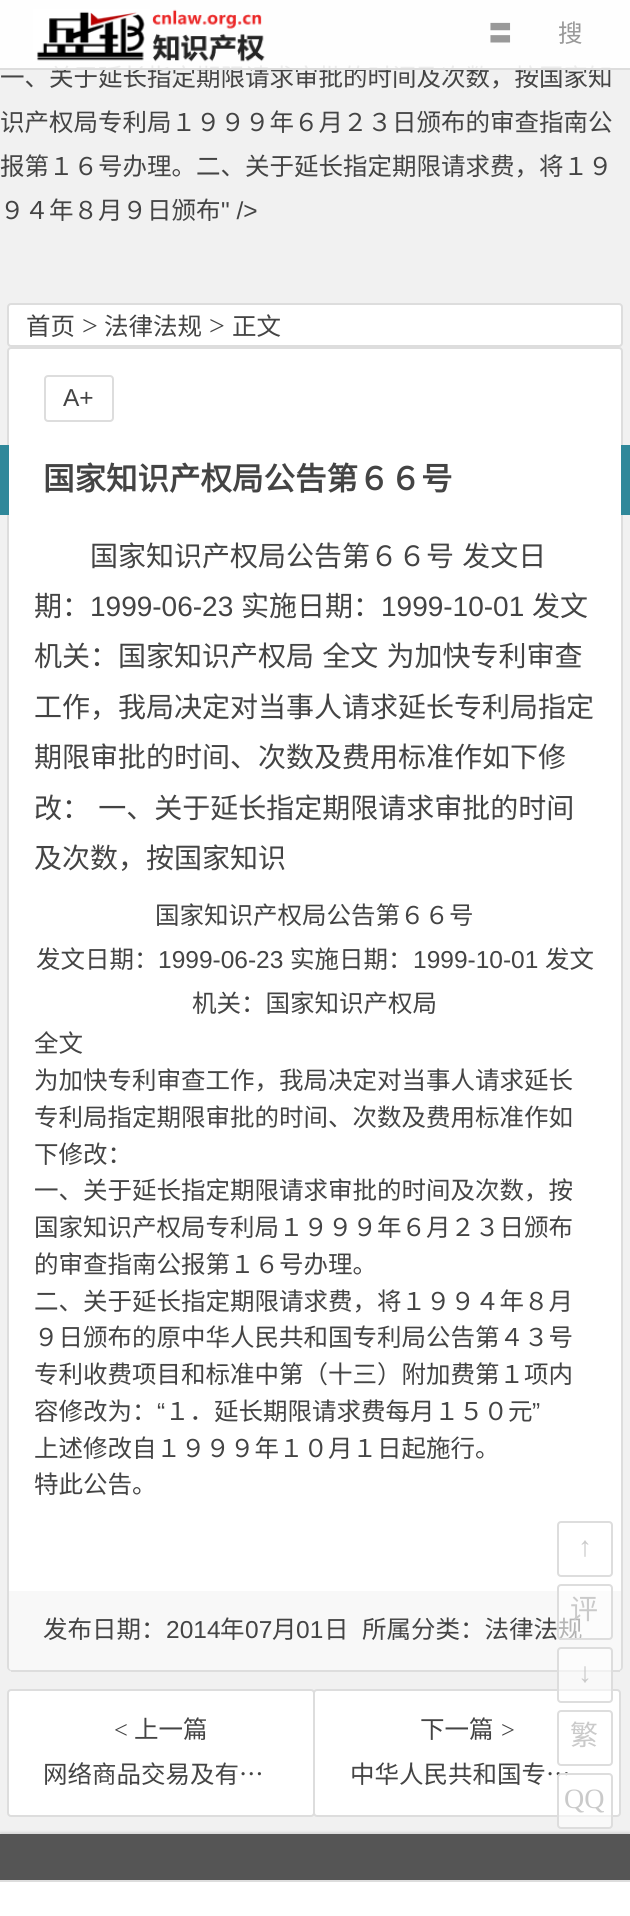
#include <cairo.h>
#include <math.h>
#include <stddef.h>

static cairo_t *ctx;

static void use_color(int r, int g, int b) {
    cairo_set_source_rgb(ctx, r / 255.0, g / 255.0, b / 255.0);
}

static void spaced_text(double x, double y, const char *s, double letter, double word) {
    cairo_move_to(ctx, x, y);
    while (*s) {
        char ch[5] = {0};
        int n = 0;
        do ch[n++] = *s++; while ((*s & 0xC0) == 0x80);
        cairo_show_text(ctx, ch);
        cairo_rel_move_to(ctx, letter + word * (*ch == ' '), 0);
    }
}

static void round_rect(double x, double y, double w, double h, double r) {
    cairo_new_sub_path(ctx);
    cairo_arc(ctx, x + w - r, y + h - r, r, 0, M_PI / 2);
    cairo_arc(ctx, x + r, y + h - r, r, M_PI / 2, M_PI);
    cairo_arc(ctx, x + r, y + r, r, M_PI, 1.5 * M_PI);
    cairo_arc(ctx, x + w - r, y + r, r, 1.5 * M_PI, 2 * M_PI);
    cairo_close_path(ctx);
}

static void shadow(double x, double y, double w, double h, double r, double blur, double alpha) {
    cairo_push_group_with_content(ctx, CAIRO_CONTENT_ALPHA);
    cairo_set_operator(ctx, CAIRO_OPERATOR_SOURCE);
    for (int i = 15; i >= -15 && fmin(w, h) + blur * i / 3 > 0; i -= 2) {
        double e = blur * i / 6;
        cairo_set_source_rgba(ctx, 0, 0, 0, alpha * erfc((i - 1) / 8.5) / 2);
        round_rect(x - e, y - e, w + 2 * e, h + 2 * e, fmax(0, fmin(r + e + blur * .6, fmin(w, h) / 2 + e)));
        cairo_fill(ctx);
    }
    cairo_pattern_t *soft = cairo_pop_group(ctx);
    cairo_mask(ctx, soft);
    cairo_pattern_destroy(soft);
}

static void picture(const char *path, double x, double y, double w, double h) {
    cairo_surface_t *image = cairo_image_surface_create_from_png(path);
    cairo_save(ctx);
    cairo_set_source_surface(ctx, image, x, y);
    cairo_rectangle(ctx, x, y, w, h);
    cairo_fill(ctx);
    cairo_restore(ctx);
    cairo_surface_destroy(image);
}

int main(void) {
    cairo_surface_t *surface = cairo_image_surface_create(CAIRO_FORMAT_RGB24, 630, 1916);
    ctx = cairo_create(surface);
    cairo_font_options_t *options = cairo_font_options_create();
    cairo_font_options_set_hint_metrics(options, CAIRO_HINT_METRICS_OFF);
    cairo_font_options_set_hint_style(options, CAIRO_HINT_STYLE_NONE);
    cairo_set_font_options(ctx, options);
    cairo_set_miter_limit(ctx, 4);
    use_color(241, 241, 241);
    cairo_paint(ctx);
    cairo_select_font_face(ctx, "Noto Sans CJK SC", CAIRO_FONT_SLANT_NORMAL, CAIRO_FONT_WEIGHT_NORMAL);
    cairo_set_font_size(ctx, 24.5);
    use_color(68, 68, 68);
    cairo_move_to(ctx, 0, 86);
    cairo_show_text(ctx, "一、关于延长指定期限请求审批的时间及次数，按国家知");
    cairo_set_source_rgba(ctx, 1, 1, 1, 0.9);
    cairo_rectangle(ctx, 0, 0, 630, 68);
    cairo_fill(ctx);
    use_color(221, 221, 221);
    cairo_rectangle(ctx, 0, 68, 630, 2);
    cairo_fill(ctx);
    picture("img1.png", 33, 9, 232, 53);
    use_color(153, 153, 153);
    cairo_move_to(ctx, 488, 42);
    cairo_show_text(ctx, "〓");
    cairo_move_to(ctx, 558, 42);
    cairo_show_text(ctx, "搜");
    use_color(255, 255, 255);
    round_rect(8, 304, 614, 42, 3);
    cairo_fill_preserve(ctx);
    use_color(221, 221, 221);
    cairo_stroke(ctx);
    use_color(68, 68, 68);
    cairo_move_to(ctx, 26, 335);
    cairo_show_text(ctx, "首页");
    cairo_select_font_face(ctx, "Liberation Serif", CAIRO_FONT_SLANT_NORMAL, CAIRO_FONT_WEIGHT_NORMAL);
    cairo_set_font_size(ctx, 28);
    cairo_move_to(ctx, 82, 335);
    cairo_show_text(ctx, ">");
    cairo_select_font_face(ctx, "Noto Sans CJK SC", CAIRO_FONT_SLANT_NORMAL, CAIRO_FONT_WEIGHT_NORMAL);
    cairo_set_font_size(ctx, 24.5);
    cairo_move_to(ctx, 104, 335);
    cairo_show_text(ctx, "法律法规");
    cairo_select_font_face(ctx, "Liberation Serif", CAIRO_FONT_SLANT_NORMAL, CAIRO_FONT_WEIGHT_NORMAL);
    cairo_set_font_size(ctx, 28);
    cairo_move_to(ctx, 209, 335);
    cairo_show_text(ctx, ">");
    cairo_select_font_face(ctx, "Noto Sans CJK SC", CAIRO_FONT_SLANT_NORMAL, CAIRO_FONT_WEIGHT_NORMAL);
    cairo_set_font_size(ctx, 24.5);
    cairo_move_to(ctx, 232, 335);
    cairo_show_text(ctx, "正文");
    use_color(255, 255, 255);
    round_rect(8, 348, 614, 1322, 3);
    cairo_fill_preserve(ctx);
    use_color(221, 221, 221);
    cairo_stroke(ctx);
    round_rect(45, 376, 68, 45, 3);
    cairo_stroke(ctx);
    cairo_select_font_face(ctx, "Liberation Sans", CAIRO_FONT_SLANT_NORMAL, CAIRO_FONT_WEIGHT_NORMAL);
    use_color(68, 68, 68);
    cairo_move_to(ctx, 63, 406);
    cairo_show_text(ctx, "A+");
    use_color(248, 248, 248);
    cairo_new_path(ctx);
    cairo_move_to(ctx, 9, 1591);
    cairo_line_to(ctx, 621, 1591);
    cairo_line_to(ctx, 621, 1667);
    cairo_curve_to(ctx, 621, 1669, 619, 1671, 617, 1671);
    cairo_line_to(ctx, 13, 1671);
    cairo_curve_to(ctx, 11, 1671, 9, 1669, 9, 1667);
    cairo_close_path(ctx);
    cairo_fill(ctx);
    use_color(221, 221, 221);
    cairo_rectangle(ctx, 11, 1670, 609, 2);
    cairo_fill(ctx);
    cairo_select_font_face(ctx, "Noto Sans CJK SC", CAIRO_FONT_SLANT_NORMAL, CAIRO_FONT_WEIGHT_NORMAL);
    use_color(68, 68, 68);
    cairo_move_to(ctx, 43, 1638);
    cairo_show_text(ctx, "发布日期：");
    cairo_select_font_face(ctx, "Liberation Sans", CAIRO_FONT_SLANT_NORMAL, CAIRO_FONT_WEIGHT_NORMAL);
    cairo_move_to(ctx, 166, 1638);
    cairo_show_text(ctx, "2014");
    cairo_select_font_face(ctx, "Noto Sans CJK SC", CAIRO_FONT_SLANT_NORMAL, CAIRO_FONT_WEIGHT_NORMAL);
    cairo_move_to(ctx, 220, 1638);
    cairo_show_text(ctx, "年");
    cairo_select_font_face(ctx, "Liberation Sans", CAIRO_FONT_SLANT_NORMAL, CAIRO_FONT_WEIGHT_NORMAL);
    cairo_move_to(ctx, 245, 1638);
    cairo_show_text(ctx, "07");
    cairo_select_font_face(ctx, "Noto Sans CJK SC", CAIRO_FONT_SLANT_NORMAL, CAIRO_FONT_WEIGHT_NORMAL);
    cairo_move_to(ctx, 272, 1638);
    cairo_show_text(ctx, "月");
    cairo_select_font_face(ctx, "Liberation Sans", CAIRO_FONT_SLANT_NORMAL, CAIRO_FONT_WEIGHT_NORMAL);
    cairo_move_to(ctx, 296, 1638);
    cairo_show_text(ctx, "01");
    cairo_select_font_face(ctx, "Noto Sans CJK SC", CAIRO_FONT_SLANT_NORMAL, CAIRO_FONT_WEIGHT_NORMAL);
    cairo_move_to(ctx, 324, 1638);
    cairo_show_text(ctx, "日");
    cairo_move_to(ctx, 362, 1638);
    cairo_show_text(ctx, "所属分类：法律法规");
    use_color(47, 136, 154);
    cairo_rectangle(ctx, 621, 445, 9, 70);
    cairo_fill(ctx);
    cairo_rectangle(ctx, 0, 445, 9, 70);
    cairo_fill(ctx);
    cairo_select_font_face(ctx, "Noto Sans CJK SC", CAIRO_FONT_SLANT_NORMAL, CAIRO_FONT_WEIGHT_BOLD);
    cairo_set_font_size(ctx, 31.5);
    use_color(68, 68, 68);
    cairo_move_to(ctx, 43, 490);
    cairo_show_text(ctx, "国家知识产权局公告第６６号");
    cairo_select_font_face(ctx, "Noto Sans CJK SC", CAIRO_FONT_SLANT_NORMAL, CAIRO_FONT_WEIGHT_NORMAL);
    cairo_set_font_size(ctx, 28);
    spaced_text(90, 566, "国家知识产权局公告第６６号 发文日", 0, 2);
    cairo_move_to(ctx, 34, 616);
    cairo_show_text(ctx, "期：");
    cairo_select_font_face(ctx, "Liberation Sans", CAIRO_FONT_SLANT_NORMAL, CAIRO_FONT_WEIGHT_NORMAL);
    cairo_move_to(ctx, 90, 616);
    cairo_show_text(ctx, "1999-06-23");
    cairo_select_font_face(ctx, "Noto Sans CJK SC", CAIRO_FONT_SLANT_NORMAL, CAIRO_FONT_WEIGHT_NORMAL);
    cairo_move_to(ctx, 241, 616);
    cairo_show_text(ctx, "实施日期：");
    cairo_select_font_face(ctx, "Liberation Sans", CAIRO_FONT_SLANT_NORMAL, CAIRO_FONT_WEIGHT_NORMAL);
    cairo_move_to(ctx, 381, 616);
    cairo_show_text(ctx, "1999-10-01");
    cairo_select_font_face(ctx, "Noto Sans CJK SC", CAIRO_FONT_SLANT_NORMAL, CAIRO_FONT_WEIGHT_NORMAL);
    cairo_move_to(ctx, 532, 616);
    cairo_show_text(ctx, "发文");
    spaced_text(34, 666, "机关：国家知识产权局 全文 为加快专利审查", 0, 2);
    cairo_move_to(ctx, 34, 717);
    cairo_show_text(ctx, "工作，我局决定对当事人请求延长专利局指定");
    cairo_move_to(ctx, 34, 767);
    cairo_show_text(ctx, "期限审批的时间、次数及费用标准作如下修");
    spaced_text(34, 818, "改： 一、关于延长指定期限请求审批的时间", 0, 2);
    cairo_move_to(ctx, 34, 868);
    cairo_show_text(ctx, "及次数，按国家知识");
    cairo_set_font_size(ctx, 24.5);
    cairo_move_to(ctx, 155, 924);
    cairo_show_text(ctx, "国家知识产权局公告第６６号");
    cairo_move_to(ctx, 36, 968);
    cairo_show_text(ctx, "发文日期：");
    cairo_select_font_face(ctx, "Liberation Sans", CAIRO_FONT_SLANT_NORMAL, CAIRO_FONT_WEIGHT_NORMAL);
    cairo_move_to(ctx, 158, 968);
    cairo_show_text(ctx, "1999-06-23");
    cairo_select_font_face(ctx, "Noto Sans CJK SC", CAIRO_FONT_SLANT_NORMAL, CAIRO_FONT_WEIGHT_NORMAL);
    cairo_move_to(ctx, 290, 968);
    cairo_show_text(ctx, "实施日期：");
    cairo_select_font_face(ctx, "Liberation Sans", CAIRO_FONT_SLANT_NORMAL, CAIRO_FONT_WEIGHT_NORMAL);
    cairo_move_to(ctx, 413, 968);
    cairo_show_text(ctx, "1999-10-01");
    cairo_select_font_face(ctx, "Noto Sans CJK SC", CAIRO_FONT_SLANT_NORMAL, CAIRO_FONT_WEIGHT_NORMAL);
    cairo_move_to(ctx, 545, 968);
    cairo_show_text(ctx, "发文");
    cairo_move_to(ctx, 192, 1012);
    cairo_show_text(ctx, "机关：国家知识产权局");
    cairo_move_to(ctx, 34, 1052);
    cairo_show_text(ctx, "全文");
    cairo_move_to(ctx, 34, 1089);
    cairo_show_text(ctx, "为加快专利审查工作，我局决定对当事人请求延长");
    cairo_move_to(ctx, 34, 1126);
    cairo_show_text(ctx, "专利局指定期限审批的时间、次数及费用标准作如");
    cairo_move_to(ctx, 34, 1163);
    cairo_show_text(ctx, "下修改：");
    cairo_move_to(ctx, 34, 1199);
    cairo_show_text(ctx, "一、关于延长指定期限请求审批的时间及次数，按");
    cairo_move_to(ctx, 34, 1236);
    cairo_show_text(ctx, "国家知识产权局专利局１９９９年６月２３日颁布");
    cairo_move_to(ctx, 34, 1273);
    cairo_show_text(ctx, "的审查指南公报第１６号办理。");
    cairo_move_to(ctx, 34, 1310);
    cairo_show_text(ctx, "二、关于延长指定期限请求费，将１９９４年８月");
    cairo_move_to(ctx, 34, 1346);
    cairo_show_text(ctx, "９日颁布的原中华人民共和国专利局公告第４３号");
    cairo_move_to(ctx, 34, 1383);
    cairo_show_text(ctx, "专利收费项目和标准中第（十三）附加费第１项内");
    cairo_move_to(ctx, 34, 1420);
    cairo_show_text(ctx, "容修改为：");
    cairo_select_font_face(ctx, "Liberation Sans", CAIRO_FONT_SLANT_NORMAL, CAIRO_FONT_WEIGHT_NORMAL);
    cairo_move_to(ctx, 157, 1420);
    cairo_show_text(ctx, "“");
    cairo_select_font_face(ctx, "Noto Sans CJK SC", CAIRO_FONT_SLANT_NORMAL, CAIRO_FONT_WEIGHT_NORMAL);
    cairo_move_to(ctx, 165, 1420);
    cairo_show_text(ctx, "１．延长期限请求费每月１５０元");
    cairo_select_font_face(ctx, "Liberation Sans", CAIRO_FONT_SLANT_NORMAL, CAIRO_FONT_WEIGHT_NORMAL);
    cairo_move_to(ctx, 532, 1420);
    cairo_show_text(ctx, "”");
    cairo_select_font_face(ctx, "Noto Sans CJK SC", CAIRO_FONT_SLANT_NORMAL, CAIRO_FONT_WEIGHT_NORMAL);
    cairo_move_to(ctx, 34, 1457);
    cairo_show_text(ctx, "上述修改自１９９９年１０月１日起施行。");
    cairo_move_to(ctx, 34, 1493);
    cairo_show_text(ctx, "特此公告。");
    use_color(255, 255, 255);
    round_rect(8, 1690, 306, 126, 3);
    cairo_fill_preserve(ctx);
    use_color(221, 221, 221);
    cairo_stroke(ctx);
    cairo_select_font_face(ctx, "Liberation Serif", CAIRO_FONT_SLANT_NORMAL, CAIRO_FONT_WEIGHT_NORMAL);
    use_color(68, 68, 68);
    cairo_move_to(ctx, 114, 1738);
    cairo_show_text(ctx, "<");
    cairo_select_font_face(ctx, "Noto Sans CJK SC", CAIRO_FONT_SLANT_NORMAL, CAIRO_FONT_WEIGHT_NORMAL);
    cairo_move_to(ctx, 134, 1738);
    cairo_show_text(ctx, "上一篇");
    cairo_move_to(ctx, 43, 1783);
    cairo_show_text(ctx, "网络商品交易及有…");
    use_color(255, 255, 255);
    round_rect(314, 1690, 306, 126, 3);
    cairo_fill_preserve(ctx);
    use_color(221, 221, 221);
    cairo_stroke(ctx);
    use_color(68, 68, 68);
    cairo_move_to(ctx, 420, 1738);
    cairo_show_text(ctx, "下一篇");
    cairo_select_font_face(ctx, "Liberation Serif", CAIRO_FONT_SLANT_NORMAL, CAIRO_FONT_WEIGHT_NORMAL);
    cairo_move_to(ctx, 501, 1738);
    cairo_show_text(ctx, ">");
    cairo_select_font_face(ctx, "Noto Sans CJK SC", CAIRO_FONT_SLANT_NORMAL, CAIRO_FONT_WEIGHT_NORMAL);
    cairo_move_to(ctx, 350, 1783);
    cairo_show_text(ctx, "中华人民共和国专…");
    cairo_move_to(ctx, 0, 131);
    cairo_show_text(ctx, "识产权局专利局１９９９年６月２３日颁布的审查指南公");
    cairo_move_to(ctx, 0, 175);
    cairo_show_text(ctx, "报第１６号办理。二、关于延长指定期限请求费，将１９");
    cairo_move_to(ctx, 0, 219);
    cairo_show_text(ctx, "９４年８月９日颁布");
    cairo_select_font_face(ctx, "Liberation Sans", CAIRO_FONT_SLANT_NORMAL, CAIRO_FONT_WEIGHT_NORMAL);
    cairo_move_to(ctx, 221, 219);
    cairo_show_text(ctx, "\" />");
    round_rect(558, 1522, 54, 54, 3);
    use_color(221, 221, 221);
    cairo_stroke(ctx);
    cairo_select_font_face(ctx, "Liberation Serif", CAIRO_FONT_SLANT_NORMAL, CAIRO_FONT_WEIGHT_NORMAL);
    cairo_set_font_size(ctx, 28);
    use_color(202, 202, 202);
    cairo_move_to(ctx, 578, 1556);
    cairo_show_text(ctx, "↑");
    cairo_set_source_rgba(ctx, 1, 1, 1, 0.6);
    round_rect(558, 1585, 54, 54, 3);
    cairo_fill_preserve(ctx);
    use_color(221, 221, 221);
    cairo_stroke(ctx);
    cairo_select_font_face(ctx, "Noto Sans CJK SC", CAIRO_FONT_SLANT_NORMAL, CAIRO_FONT_WEIGHT_NORMAL);
    use_color(202, 202, 202);
    cairo_move_to(ctx, 570, 1619);
    cairo_show_text(ctx, "评");
    cairo_set_source_rgba(ctx, 1, 1, 1, 0.6);
    round_rect(558, 1648, 54, 54, 3);
    cairo_fill_preserve(ctx);
    use_color(221, 221, 221);
    cairo_stroke(ctx);
    cairo_select_font_face(ctx, "Liberation Serif", CAIRO_FONT_SLANT_NORMAL, CAIRO_FONT_WEIGHT_NORMAL);
    use_color(202, 202, 202);
    cairo_move_to(ctx, 578, 1682);
    cairo_show_text(ctx, "↓");
    round_rect(558, 1711, 54, 54, 3);
    use_color(221, 221, 221);
    cairo_stroke(ctx);
    cairo_select_font_face(ctx, "Noto Sans CJK SC", CAIRO_FONT_SLANT_NORMAL, CAIRO_FONT_WEIGHT_NORMAL);
    use_color(202, 202, 202);
    cairo_move_to(ctx, 570, 1745);
    cairo_show_text(ctx, "繁");
    use_color(0, 0, 0);
    shadow(0, 1832, 630, 46, 0, 1, 0.1);
    cairo_set_source_rgba(ctx, 1, 1, 1, 0.6);
    round_rect(558, 1774, 54, 54, 3);
    cairo_fill_preserve(ctx);
    use_color(221, 221, 221);
    cairo_stroke(ctx);
    cairo_select_font_face(ctx, "Liberation Serif", CAIRO_FONT_SLANT_NORMAL, CAIRO_FONT_WEIGHT_NORMAL);
    use_color(202, 202, 202);
    cairo_move_to(ctx, 564, 1808);
    cairo_show_text(ctx, "QQ");
    use_color(85, 85, 85);
    cairo_rectangle(ctx, 0, 1834, 630, 46);
    cairo_fill(ctx);
    use_color(255, 255, 255);
    cairo_rectangle(ctx, 0, 1882, 630, 34);
    cairo_fill(ctx);
    use_color(221, 221, 221);
    cairo_rectangle(ctx, 0, 1880, 630, 2);
    cairo_fill(ctx);
    cairo_surface_write_to_png(surface, "result.png");
    cairo_font_options_destroy(options);
    cairo_destroy(ctx);
    cairo_surface_destroy(surface);
    return 0;
}
